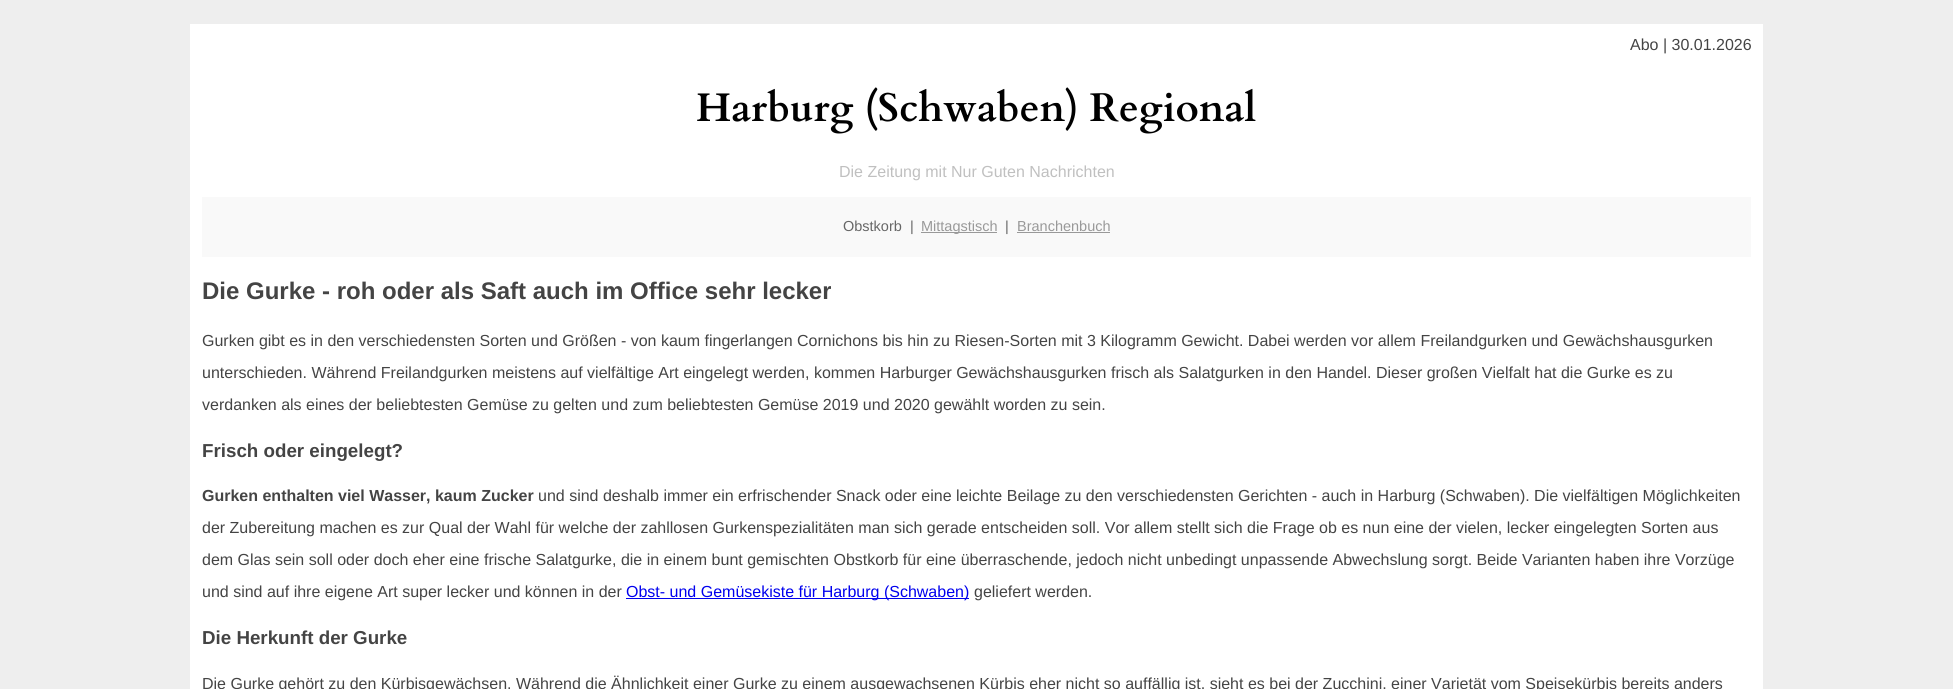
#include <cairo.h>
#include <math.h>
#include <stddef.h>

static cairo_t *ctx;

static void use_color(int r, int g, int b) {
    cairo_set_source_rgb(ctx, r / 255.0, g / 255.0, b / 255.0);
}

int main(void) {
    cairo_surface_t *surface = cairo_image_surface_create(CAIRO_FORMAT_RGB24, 1953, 689);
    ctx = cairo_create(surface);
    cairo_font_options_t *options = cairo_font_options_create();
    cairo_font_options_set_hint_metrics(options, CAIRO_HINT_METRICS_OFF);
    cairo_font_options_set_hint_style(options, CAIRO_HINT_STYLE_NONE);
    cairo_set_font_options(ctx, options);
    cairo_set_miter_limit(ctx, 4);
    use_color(238, 238, 238);
    cairo_paint(ctx);
    use_color(255, 255, 255);
    cairo_rectangle(ctx, 190, 24, 1573, 665);
    cairo_fill(ctx);
    cairo_select_font_face(ctx, "Liberation Sans", CAIRO_FONT_SLANT_NORMAL, CAIRO_FONT_WEIGHT_NORMAL);
    cairo_set_font_size(ctx, 16);
    use_color(68, 68, 68);
    cairo_move_to(ctx, 1630, 50);
    cairo_show_text(ctx, "Abo | 30.01.2026");
    cairo_select_font_face(ctx, "Cardo", CAIRO_FONT_SLANT_NORMAL, CAIRO_FONT_WEIGHT_BOLD);
    cairo_set_font_size(ctx, 40);
    use_color(0, 0, 0);
    cairo_move_to(ctx, 696, 121);
    cairo_show_text(ctx, "Harburg (Schwaben) Regional");
    cairo_select_font_face(ctx, "Liberation Sans", CAIRO_FONT_SLANT_NORMAL, CAIRO_FONT_WEIGHT_NORMAL);
    cairo_set_font_size(ctx, 16);
    use_color(192, 192, 192);
    cairo_move_to(ctx, 839, 177);
    cairo_show_text(ctx, "Die Zeitung mit Nur Guten Nachrichten");
    use_color(249, 249, 249);
    cairo_rectangle(ctx, 202, 197, 1549, 60);
    cairo_fill(ctx);
    cairo_set_font_size(ctx, 14.5);
    use_color(102, 102, 102);
    cairo_move_to(ctx, 843, 231);
    cairo_show_text(ctx, "Obstkorb  |");
    use_color(153, 153, 153);
    cairo_rectangle(ctx, 921, 232, 76, 1);
    cairo_fill(ctx);
    cairo_move_to(ctx, 921, 231);
    cairo_show_text(ctx, "Mittagstisch");
    use_color(102, 102, 102);
    cairo_move_to(ctx, 1005, 231);
    cairo_show_text(ctx, "|");
    use_color(153, 153, 153);
    cairo_move_to(ctx, 1017, 231);
    cairo_show_text(ctx, "Branchenbuch");
    cairo_rectangle(ctx, 1017, 232, 93, 1);
    cairo_fill(ctx);
    cairo_select_font_face(ctx, "Liberation Sans", CAIRO_FONT_SLANT_NORMAL, CAIRO_FONT_WEIGHT_BOLD);
    cairo_set_font_size(ctx, 24);
    use_color(68, 68, 68);
    cairo_move_to(ctx, 202, 299);
    cairo_show_text(ctx, "Die Gurke - roh oder als Saft auch im Office sehr lecker");
    cairo_select_font_face(ctx, "Liberation Sans", CAIRO_FONT_SLANT_NORMAL, CAIRO_FONT_WEIGHT_NORMAL);
    cairo_set_font_size(ctx, 16);
    cairo_move_to(ctx, 202, 346);
    cairo_show_text(ctx, "Gurken gibt es in den verschiedensten Sorten und Größen - von kaum fingerlangen Cornichons bis hin zu Riesen-Sorten mit 3 Kilogramm Gewicht. Dabei werden vor allem Freilandgurken und Gewächshausgurken");
    cairo_move_to(ctx, 202, 378);
    cairo_show_text(ctx, "unterschieden. Während Freilandgurken meistens auf vielfältige Art eingelegt werden, kommen Harburger Gewächshausgurken frisch als Salatgurken in den Handel. Dieser großen Vielfalt hat die Gurke es zu");
    cairo_move_to(ctx, 202, 410);
    cairo_show_text(ctx, "verdanken als eines der beliebtesten Gemüse zu gelten und zum beliebtesten Gemüse 2019 und 2020 gewählt worden zu sein.");
    cairo_select_font_face(ctx, "Liberation Sans", CAIRO_FONT_SLANT_NORMAL, CAIRO_FONT_WEIGHT_BOLD);
    cairo_set_font_size(ctx, 18.75);
    cairo_move_to(ctx, 202, 457);
    cairo_show_text(ctx, "Frisch oder eingelegt?");
    cairo_set_font_size(ctx, 16);
    cairo_move_to(ctx, 202, 501);
    cairo_show_text(ctx, "Gurken enthalten viel Wasser, kaum Zucker");
    cairo_select_font_face(ctx, "Liberation Sans", CAIRO_FONT_SLANT_NORMAL, CAIRO_FONT_WEIGHT_NORMAL);
    cairo_move_to(ctx, 538, 501);
    cairo_show_text(ctx, "und sind deshalb immer ein erfrischender Snack oder eine leichte Beilage zu den verschiedensten Gerichten - auch in Harburg (Schwaben). Die vielfältigen Möglichkeiten");
    cairo_move_to(ctx, 202, 533);
    cairo_show_text(ctx, "der Zubereitung machen es zur Qual der Wahl für welche der zahllosen Gurkenspezialitäten man sich gerade entscheiden soll. Vor allem stellt sich die Frage ob es nun eine der vielen, lecker eingelegten Sorten aus");
    cairo_move_to(ctx, 202, 565);
    cairo_show_text(ctx, "dem Glas sein soll oder doch eher eine frische Salatgurke, die in einem bunt gemischten Obstkorb für eine überraschende, jedoch nicht unbedingt unpassende Abwechslung sorgt. Beide Varianten haben ihre Vorzüge");
    cairo_move_to(ctx, 202, 597);
    cairo_show_text(ctx, "und sind auf ihre eigene Art super lecker und können in der");
    use_color(0, 0, 238);
    cairo_rectangle(ctx, 626, 598, 343, 1);
    cairo_fill(ctx);
    cairo_move_to(ctx, 626, 597);
    cairo_show_text(ctx, "Obst- und Gemüsekiste für Harburg (Schwaben)");
    use_color(68, 68, 68);
    cairo_move_to(ctx, 974, 597);
    cairo_show_text(ctx, "geliefert werden.");
    cairo_select_font_face(ctx, "Liberation Sans", CAIRO_FONT_SLANT_NORMAL, CAIRO_FONT_WEIGHT_BOLD);
    cairo_set_font_size(ctx, 18.75);
    cairo_move_to(ctx, 202, 644);
    cairo_show_text(ctx, "Die Herkunft der Gurke");
    cairo_select_font_face(ctx, "Liberation Sans", CAIRO_FONT_SLANT_NORMAL, CAIRO_FONT_WEIGHT_NORMAL);
    cairo_set_font_size(ctx, 16);
    cairo_move_to(ctx, 202, 689);
    cairo_show_text(ctx, "Die Gurke gehört zu den Kürbisgewächsen. Während die Ähnlichkeit einer Gurke zu einem ausgewachsenen Kürbis eher nicht so auffällig ist, sieht es bei der Zucchini, einer Varietät vom Speisekürbis bereits anders");
    cairo_surface_write_to_png(surface, "result.png");
    cairo_font_options_destroy(options);
    cairo_destroy(ctx);
    cairo_surface_destroy(surface);
    return 0;
}
